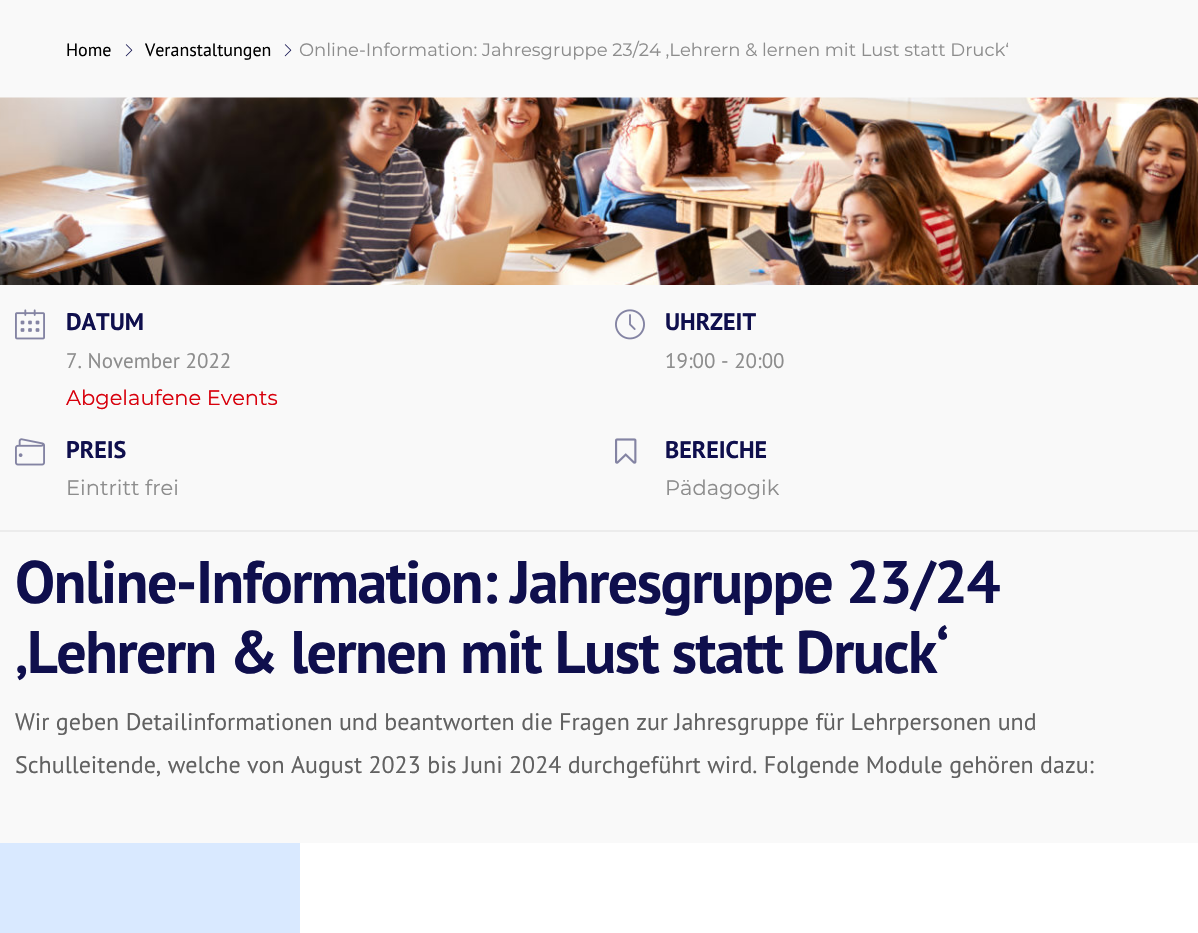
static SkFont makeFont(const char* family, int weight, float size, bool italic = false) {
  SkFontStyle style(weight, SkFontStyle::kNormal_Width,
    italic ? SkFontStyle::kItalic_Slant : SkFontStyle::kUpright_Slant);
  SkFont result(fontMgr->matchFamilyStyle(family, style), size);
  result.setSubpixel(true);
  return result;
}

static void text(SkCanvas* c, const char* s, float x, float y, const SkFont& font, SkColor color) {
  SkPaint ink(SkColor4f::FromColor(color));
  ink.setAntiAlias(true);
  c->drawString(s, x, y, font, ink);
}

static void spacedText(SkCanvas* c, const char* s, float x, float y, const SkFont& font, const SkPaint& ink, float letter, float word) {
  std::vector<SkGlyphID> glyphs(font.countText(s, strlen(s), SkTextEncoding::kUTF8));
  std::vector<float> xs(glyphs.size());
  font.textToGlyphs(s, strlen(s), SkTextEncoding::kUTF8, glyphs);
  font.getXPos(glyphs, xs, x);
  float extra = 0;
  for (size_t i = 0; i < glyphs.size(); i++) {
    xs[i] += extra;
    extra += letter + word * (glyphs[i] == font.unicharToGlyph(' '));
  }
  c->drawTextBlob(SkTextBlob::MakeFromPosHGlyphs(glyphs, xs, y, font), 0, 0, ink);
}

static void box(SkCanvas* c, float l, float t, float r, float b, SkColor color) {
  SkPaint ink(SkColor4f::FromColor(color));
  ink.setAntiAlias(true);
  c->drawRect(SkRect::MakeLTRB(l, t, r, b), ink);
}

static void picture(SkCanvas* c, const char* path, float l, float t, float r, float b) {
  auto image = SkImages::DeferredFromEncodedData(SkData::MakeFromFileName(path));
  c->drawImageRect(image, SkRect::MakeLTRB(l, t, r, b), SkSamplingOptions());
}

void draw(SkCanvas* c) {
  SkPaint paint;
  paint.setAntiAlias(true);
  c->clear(0xfff9f9f9);
  SkFont face1 = makeFont("PT Sans", 400, 18);
  text(c, "Home", 66, 56, face1, 0xff000000);
  picture(c, "img_01.png", 125, 44, 133, 57);
  text(c, "Veranstaltungen", 145, 56, face1, 0xff000000);
  picture(c, "img_01.png", 284, 44, 292, 57);
  SkFont face2 = makeFont("Montserrat", 400, 18);
  text(c, "Online-Information: Jahresgruppe 23/24 ‚Lehrern & lernen mit Lust statt Druck‘", 299, 56, face2, 0xff8d8d8d);
  picture(c, "img_02.png", 0, 97, 1198, 285);
  picture(c, "img_03.png", 15, 309, 45, 340);
  SkFont face3 = makeFont("PT Sans", 700, 24);
  text(c, "DATUM", 66, 330, face3, 0xff0f0f4d);
  SkFont face4 = makeFont("PT Sans", 400, 21);
  text(c, "7. November 2022", 66, 368, face4, 0xff8d8d8d);
  SkFont face5 = makeFont("Montserrat", 400, 21);
  text(c, "Abgelaufene Events", 66, 405, face5, 0xffd8000c);
  picture(c, "img_04.png", 615, 309, 645, 340);
  text(c, "UHRZEIT", 665, 330, face3, 0xff0f0f4d);
  text(c, "19:00 - 20:00", 665, 368, face4, 0xff8d8d8d);
  picture(c, "img_05.png", 15, 438, 45, 466);
  text(c, "PREIS", 66, 458, face3, 0xff0f0f4d);
  text(c, "Eintritt frei", 66, 495, face5, 0xff8d8d8d);
  picture(c, "img_06.png", 615, 438, 637, 464);
  text(c, "BEREICHE", 665, 458, face3, 0xff0f0f4d);
  text(c, "Pädagogik", 665, 495, face5, 0xff8d8d8d);
  box(c, 0, 530, 1198, 532, 0xffececec);
  SkFont face6 = makeFont("PT Sans", 700, 60);
  paint.setColor(0xff0f0f4d);
  spacedText(c, "Online-Information: Jahresgruppe 23/24", 15, 603, face6, paint, -1.5f, 0);
  spacedText(c, "‚Lehrern & lernen mit Lust statt Druck‘", 15, 673, face6, paint, -1.5f, 0);
  SkFont face7 = makeFont("PT Sans", 400, 24);
  text(c, "Wir geben Detailinformationen und beantworten die Fragen zur Jahresgruppe für Lehrpersonen und", 15, 730, face7, 0xff616161);
  text(c, "Schulleitende, welche von August 2023 bis Juni 2024 durchgeführt wird. Folgende Module gehören dazu:", 15, 773, face7, 0xff616161);
  box(c, 300, 843, 1198, 933, 0xffffffff);
  box(c, 0, 843, 300, 933, 0xffd9e9ff);
}
